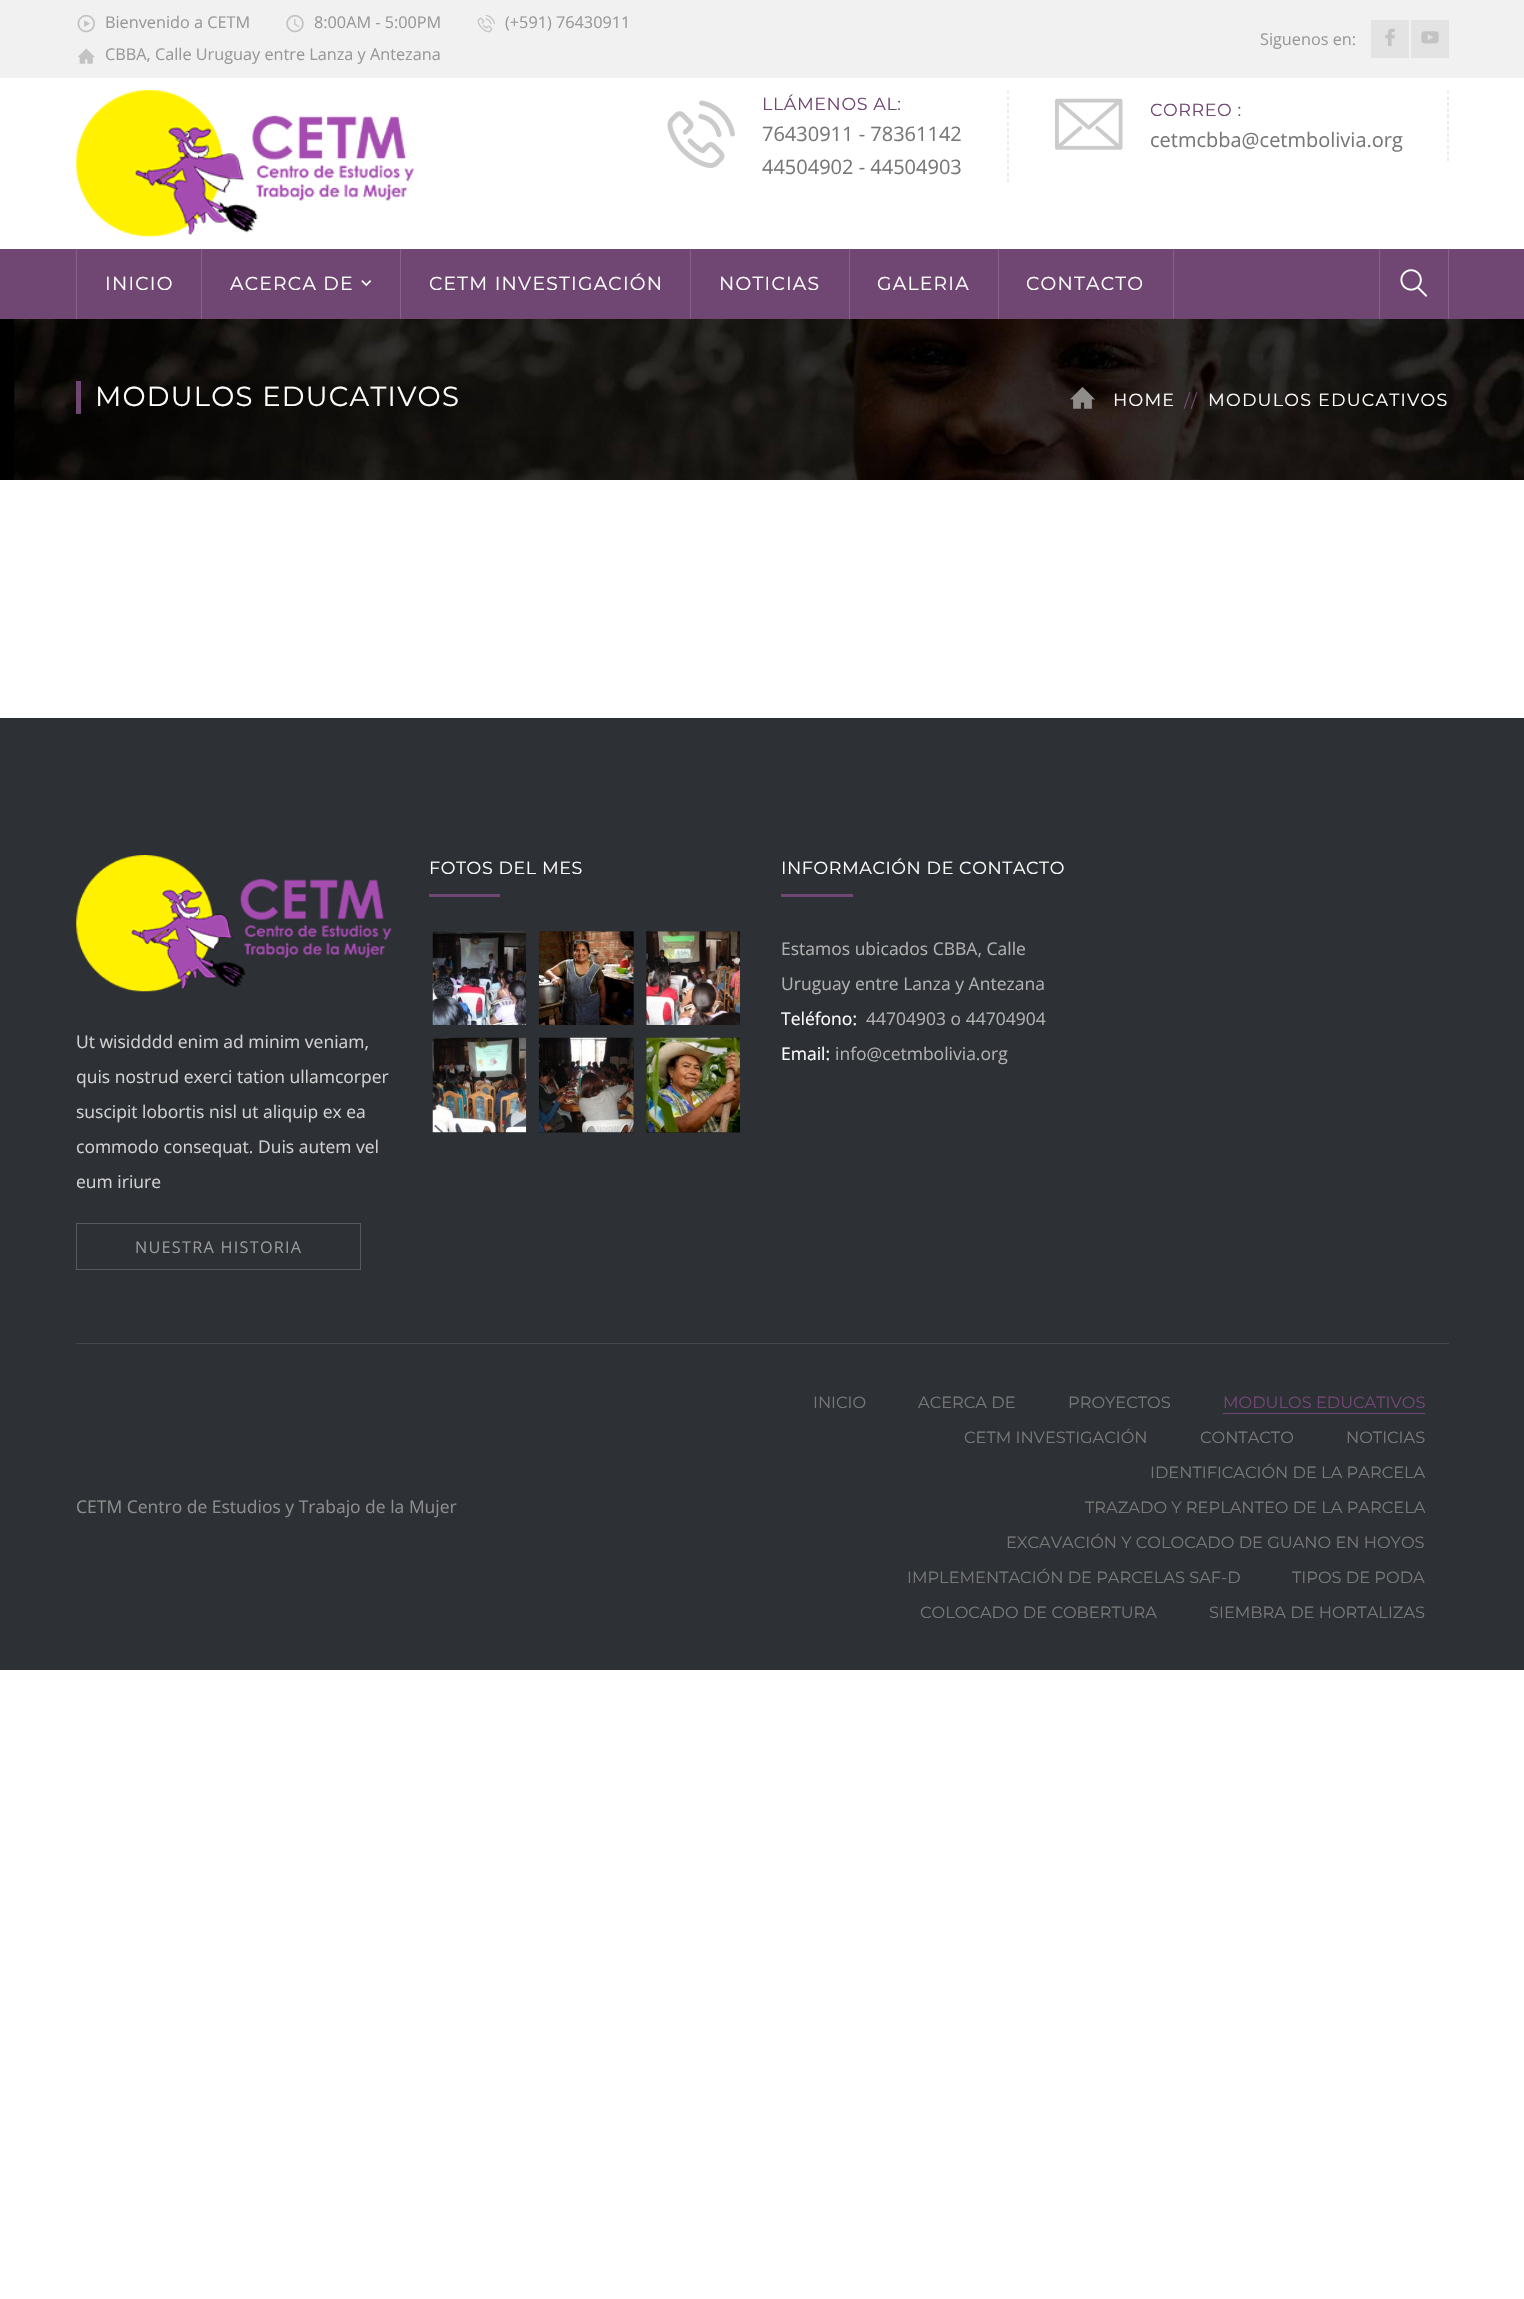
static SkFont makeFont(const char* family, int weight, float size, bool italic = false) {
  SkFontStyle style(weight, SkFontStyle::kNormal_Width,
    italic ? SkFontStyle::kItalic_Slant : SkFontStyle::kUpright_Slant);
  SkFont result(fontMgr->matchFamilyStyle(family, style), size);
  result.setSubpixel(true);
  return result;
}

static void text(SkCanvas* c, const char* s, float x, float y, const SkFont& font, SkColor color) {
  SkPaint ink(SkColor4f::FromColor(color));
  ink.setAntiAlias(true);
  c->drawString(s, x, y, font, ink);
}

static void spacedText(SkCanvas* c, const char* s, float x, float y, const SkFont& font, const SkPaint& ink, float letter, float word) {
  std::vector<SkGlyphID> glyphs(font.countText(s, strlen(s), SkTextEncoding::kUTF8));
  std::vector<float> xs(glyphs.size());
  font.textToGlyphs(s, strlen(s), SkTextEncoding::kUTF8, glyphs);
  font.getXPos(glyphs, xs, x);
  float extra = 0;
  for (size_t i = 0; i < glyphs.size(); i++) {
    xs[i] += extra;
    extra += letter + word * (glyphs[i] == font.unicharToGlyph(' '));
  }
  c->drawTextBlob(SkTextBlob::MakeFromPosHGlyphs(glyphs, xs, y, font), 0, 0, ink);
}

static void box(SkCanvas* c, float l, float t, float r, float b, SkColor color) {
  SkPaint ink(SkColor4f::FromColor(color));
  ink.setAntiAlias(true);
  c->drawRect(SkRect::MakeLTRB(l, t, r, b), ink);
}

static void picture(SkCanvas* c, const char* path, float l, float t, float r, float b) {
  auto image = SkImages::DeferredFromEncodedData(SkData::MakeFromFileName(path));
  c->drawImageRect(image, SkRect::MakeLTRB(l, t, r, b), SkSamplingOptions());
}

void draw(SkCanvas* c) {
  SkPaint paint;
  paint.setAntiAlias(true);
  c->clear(0xffffffff);
  box(c, 0, 0, 1524, 78, 0xfff1f1f1);
  picture(c, "img_01.png", 77, 14, 95, 33);
  SkFont face1 = makeFont("Open Sans", 400, 16.25f);
  text(c, "Bienvenido a CETM", 105, 28, face1, 0xff999999);
  picture(c, "img_02.png", 286, 14, 304, 33);
  text(c, "8:00AM - 5:00PM", 314, 28, face1, 0xff999999);
  picture(c, "img_03.png", 477, 15, 495, 33);
  text(c, "(+591) 76430911", 505, 28, face1, 0xff999999);
  picture(c, "img_04.png", 78, 48, 95, 64);
  text(c, "CBBA, Calle Uruguay entre Lanza y Antezana", 105, 60, face1, 0xff999999);
  text(c, "Siguenos en:", 1260, 45, face1, 0xff999999);
  box(c, 1371, 20, 1409, 58, 0xffe3e3e3);
  picture(c, "img_05.png", 1385, 28, 1395, 46);
  box(c, 1411, 20, 1449, 58, 0xffe3e3e3);
  picture(c, "img_06.png", 1421, 31, 1439, 44);
  picture(c, "img_07.png", 76, 90, 414, 237);
  paint.setStyle(SkPaint::kStroke_Style);
  paint.setStrokeWidth(1.2f);
  paint.setColor(0xffe0e0e0);
  paint.setPathEffect(SkDashPathEffect::Make({{3.75f, 2.59f}}, 0));
  c->drawPath(SkPathBuilder().moveTo(1008, 90).lineTo(1008, 182.5f).detach(), paint);
  paint.setPathEffect(nullptr);
  picture(c, "img_08.png", 667, 100, 735, 168);
  SkFont face2 = makeFont("Montserrat", 400, 17.5f);
  paint.setStyle(SkPaint::kFill_Style);
  paint.setColor(0xff704773);
  spacedText(c, "LLÁMENOS AL:", 762, 110, face2, paint, 0.6f, 0);
  SkFont face3 = makeFont("Open Sans", 400, 20);
  text(c, "76430911 - 78361142", 762, 141, face3, 0xff777777);
  text(c, "44504902 - 44504903", 762, 174, face3, 0xff777777);
  paint.setStyle(SkPaint::kStroke_Style);
  paint.setColor(0xffe0e0e0);
  paint.setPathEffect(SkDashPathEffect::Make({{3.75f, 2.39f}}, 0));
  c->drawPath(SkPathBuilder().moveTo(1448, 90).lineTo(1448, 161).detach(), paint);
  paint.setPathEffect(nullptr);
  picture(c, "img_09.png", 1055, 98, 1123, 150);
  paint.setStyle(SkPaint::kFill_Style);
  paint.setColor(0xff704773);
  spacedText(c, "CORREO :", 1150, 116, face2, paint, 0.6f, 0);
  text(c, "cetmcbba@cetmbolivia.org", 1150, 147, face3, 0xff777777);
  box(c, 0, 249, 1524, 319, 0xff704773);
  box(c, 201, 249, 202, 319, 0xff856388);
  box(c, 76, 249, 77, 319, 0xff856388);
  SkFont face4 = makeFont("Montserrat", 400, 18.75f);
  paint.setColor(0xffffffff);
  spacedText(c, "INICIO", 105, 290, face4, paint, 1.25f, 0);
  box(c, 400, 249, 401, 319, 0xff856388);
  spacedText(c, "ACERCA DE", 230, 290, face4, paint, 1.25f, 0);
  picture(c, "img_10.png", 361, 280, 372, 287);
  box(c, 690, 249, 691, 319, 0xff856388);
  spacedText(c, "CETM INVESTIGACIÓN", 429, 290, face4, paint, 1.25f, 0);
  box(c, 849, 249, 850, 319, 0xff856388);
  spacedText(c, "NOTICIAS", 719, 290, face4, paint, 1.25f, 0);
  box(c, 998, 249, 999, 319, 0xff856388);
  spacedText(c, "GALERIA", 877, 290, face4, paint, 1.25f, 0);
  box(c, 1173, 249, 1174, 319, 0xff856388);
  spacedText(c, "CONTACTO", 1026, 290, face4, paint, 1.25f, 0);
  box(c, 1448, 249, 1449, 319, 0xff856388);
  box(c, 1379, 249, 1380, 319, 0xff856388);
  picture(c, "img_11.png", 1400, 269, 1428, 297);
  picture(c, "img_12.png", 0, 319, 1524, 480);
  box(c, 76, 381, 81, 414, 0xff704773);
  SkFont face5 = makeFont("Montserrat", 400, 27.5f);
  spacedText(c, "MODULOS EDUCATIVOS", 95, 406, face5, paint, 1.25f, 0);
  picture(c, "img_13.png", 1070, 387, 1095, 409);
  spacedText(c, "HOME", 1113, 406, face2, paint, 1.25f, 0);
  paint.setColor(0xff704773);
  spacedText(c, "//", 1184, 407, face2, paint, 1.25f, 0);
  paint.setColor(0xffffffff);
  spacedText(c, "MODULOS EDUCATIVOS", 1208, 406, face2, paint, 1.25f, 0);
  box(c, 0, 718, 1524, 1670, 0xff2d3034);
  spacedText(c, "FOTOS DEL MES", 429, 874, face2, paint, 0.6f, 0);
  box(c, 429, 894, 500, 897, 0xff704773);
  box(c, 433, 931, 526, 932, 0xff222222);
  picture(c, "img_14.png", 432, 931, 527, 1025);
  box(c, 539, 931, 634, 1025, 0xff222222);
  picture(c, "img_15.png", 538, 931, 634, 1025);
  box(c, 646, 931, 740, 1025, 0xff222222);
  picture(c, "img_16.png", 646, 931, 740, 1025);
  box(c, 433, 1132, 526, 1133, 0xff222222);
  picture(c, "img_17.png", 432, 1037, 527, 1133);
  box(c, 539, 1038, 634, 1133, 0xff222222);
  picture(c, "img_18.png", 538, 1037, 634, 1133);
  box(c, 646, 1038, 740, 1133, 0xff222222);
  picture(c, "img_19.png", 646, 1037, 740, 1133);
  spacedText(c, "INFORMACIÓN DE CONTACTO", 781, 874, face2, paint, 0.6f, 0);
  box(c, 781, 894, 853, 897, 0xff704773);
  SkFont face6 = makeFont("Open Sans", 400, 17.5f);
  text(c, "Estamos ubicados CBBA, Calle", 781, 955, face6, 0xffb1b1b1);
  text(c, "Uruguay entre Lanza y Antezana", 781, 990, face6, 0xffb1b1b1);
  text(c, "Teléfono:", 781, 1025, face6, 0xffffffff);
  text(c, "44704903 o 44704904", 866, 1025, face6, 0xffb1b1b1);
  text(c, "Email:", 781, 1060, face6, 0xffffffff);
  text(c, "info@cetmbolivia.org", 835, 1060, face6, 0xffb1b1b1);
  picture(c, "img_20.png", 76, 855, 392, 992);
  text(c, "Ut wisidddd enim ad minim veniam,", 76, 1048, face6, 0xffd0d0d1);
  text(c, "quis nostrud exerci tation ullamcorper", 76, 1083, face6, 0xffd0d0d1);
  text(c, "suscipit lobortis nisl ut aliquip ex ea", 76, 1118, face6, 0xffd0d0d1);
  text(c, "commodo consequat. Duis autem vel", 76, 1153, face6, 0xffd0d0d1);
  text(c, "eum iriure", 76, 1188, face6, 0xffd0d0d1);
  paint.setStyle(SkPaint::kStroke_Style);
  paint.setStrokeWidth(1);
  paint.setColor(0xff57595d);
  c->drawRect(SkRect::MakeLTRB(76.5f, 1223.5f, 360.5f, 1269.5f), paint);
  paint.setStyle(SkPaint::kFill_Style);
  paint.setColor(0xff999999);
  spacedText(c, "NUESTRA HISTORIA", 135, 1253, face1, paint, 1.25f, 0);
  box(c, 76, 1343, 1449, 1344, 0xff45484b);
  text(c, "CETM Centro de Estudios y Trabajo de la Mujer", 76, 1513, face6, 0xff8d8d8d);
  SkFont face7 = makeFont("Montserrat", 400, 16.25f);
  text(c, "INICIO", 813, 1408, face7, 0xff777777);
  text(c, "ACERCA DE", 918, 1408, face7, 0xff777777);
  text(c, "PROYECTOS", 1068, 1408, face7, 0xff777777);
  text(c, "MODULOS EDUCATIVOS", 1223, 1408, face7, 0xff704773);
  box(c, 1223, 1413, 1425, 1414, 0xff704773);
  text(c, "CETM INVESTIGACIÓN", 964, 1443, face7, 0xff777777);
  text(c, "CONTACTO", 1200, 1443, face7, 0xff777777);
  text(c, "NOTICIAS", 1346, 1443, face7, 0xff777777);
  text(c, "IDENTIFICACIÓN DE LA PARCELA", 1150, 1478, face7, 0xff777777);
  text(c, "TRAZADO Y REPLANTEO DE LA PARCELA", 1085, 1513, face7, 0xff777777);
  text(c, "EXCAVACIÓN Y COLOCADO DE GUANO EN HOYOS", 1006, 1548, face7, 0xff777777);
  text(c, "IMPLEMENTACIÓN DE PARCELAS SAF-D", 907, 1583, face7, 0xff777777);
  text(c, "TIPOS DE PODA", 1292, 1583, face7, 0xff777777);
  text(c, "COLOCADO DE COBERTURA", 920, 1618, face7, 0xff777777);
  text(c, "SIEMBRA DE HORTALIZAS", 1209, 1618, face7, 0xff777777);
}
